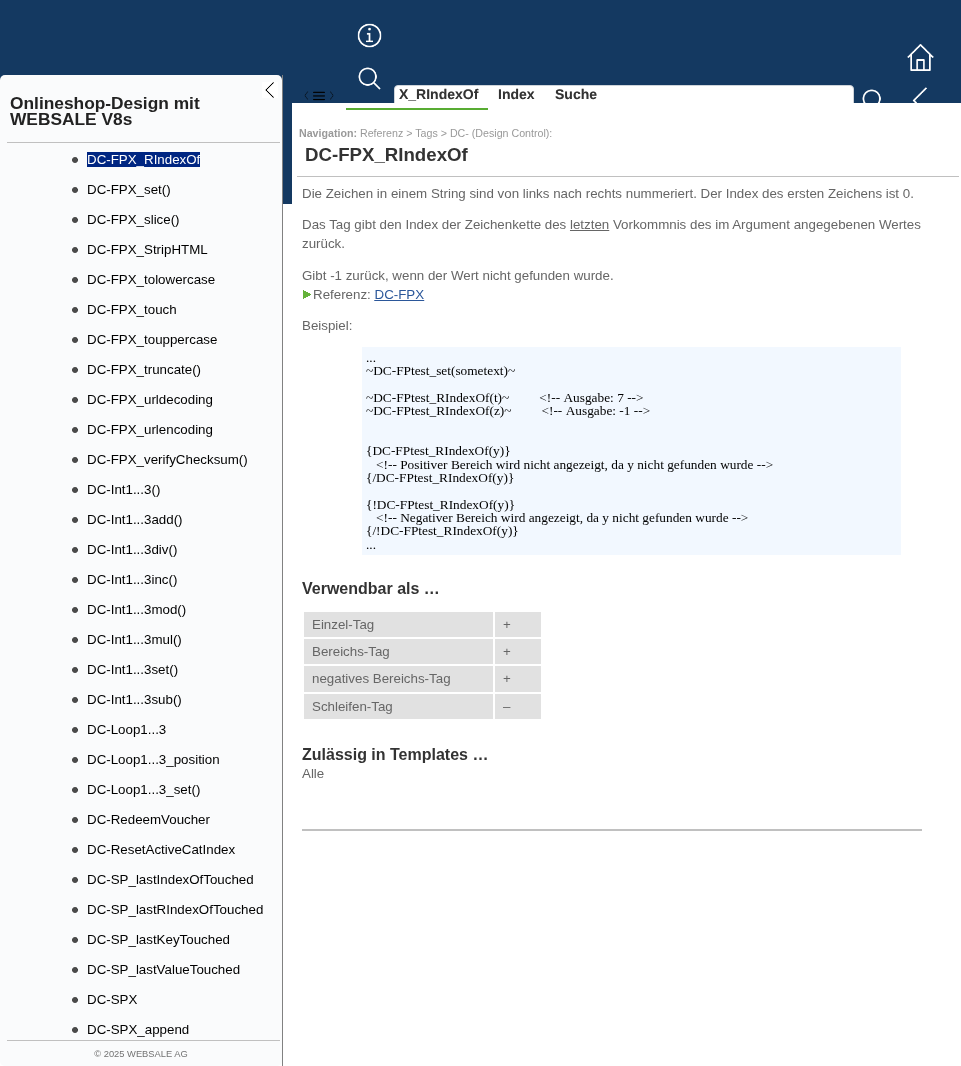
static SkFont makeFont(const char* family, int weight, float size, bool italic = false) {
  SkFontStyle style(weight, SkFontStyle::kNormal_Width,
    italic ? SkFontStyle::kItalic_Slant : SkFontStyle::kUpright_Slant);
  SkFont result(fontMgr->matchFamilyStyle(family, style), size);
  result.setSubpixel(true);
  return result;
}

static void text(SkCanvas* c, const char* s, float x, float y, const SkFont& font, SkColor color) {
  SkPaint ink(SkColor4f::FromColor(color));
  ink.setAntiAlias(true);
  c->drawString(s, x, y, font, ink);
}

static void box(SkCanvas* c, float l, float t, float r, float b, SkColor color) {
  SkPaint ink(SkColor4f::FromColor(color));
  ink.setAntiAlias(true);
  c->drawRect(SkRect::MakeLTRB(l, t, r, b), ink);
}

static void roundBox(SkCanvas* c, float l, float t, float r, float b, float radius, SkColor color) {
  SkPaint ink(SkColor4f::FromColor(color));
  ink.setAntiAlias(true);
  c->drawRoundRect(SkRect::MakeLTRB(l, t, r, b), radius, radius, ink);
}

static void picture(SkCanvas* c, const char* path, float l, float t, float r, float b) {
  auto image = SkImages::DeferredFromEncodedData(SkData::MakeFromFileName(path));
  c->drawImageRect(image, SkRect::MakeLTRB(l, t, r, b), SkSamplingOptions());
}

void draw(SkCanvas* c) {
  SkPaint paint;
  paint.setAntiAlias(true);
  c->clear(0xffffffff);
  box(c, 0, 0, 961, 204, 0xff143961);
  picture(c, "img_01.png", 357, 23, 382, 48);
  picture(c, "img_02.png", 358, 67, 381, 90);
  paint.setColor(0xffffffff);
  c->drawRoundRect(SkRect::MakeLTRB(394.5f, 85.5f, 853.5f, 118.5f), 3.5f, 3.5f, paint);
  paint.setStyle(SkPaint::kStroke_Style);
  paint.setStrokeWidth(1);
  paint.setColor(0xffced4da);
  c->drawRoundRect(SkRect::MakeLTRB(394.5f, 85.5f, 853.5f, 118.5f), 3.5f, 3.5f, paint);
  picture(c, "img_03.png", 862, 89, 881, 103);
  picture(c, "img_04.png", 907, 44, 934, 71);
  picture(c, "img_05.png", 912, 87, 927, 103);
  box(c, 282, 75, 283, 1066, 0xff818181);
  roundBox(c, 0, 75, 282, 1066, 5, 0xfffafbfc);
  picture(c, "img_06.png", 7, 97, 280, 1057);
  picture(c, "img_07.png", 262, 82, 278, 98);
  picture(c, "img_08.png", 304, 91, 309, 100);
  picture(c, "img_09.png", 313, 91, 325, 101);
  picture(c, "img_10.png", 330, 91, 334, 100);
  box(c, 292, 103, 961, 204, 0xffffffff);
  box(c, 346, 108, 488, 110, 0xff58ac32);
  SkFont face1 = makeFont("Liberation Sans", 700, 14);
  text(c, "X_RIndexOf", 399, 99, face1, 0xff333333);
  text(c, "Index", 498, 99, face1, 0xff333333);
  text(c, "Suche", 555, 99, face1, 0xff333333);
  picture(c, "img_11.png", 297, 129, 959, 831);
}
